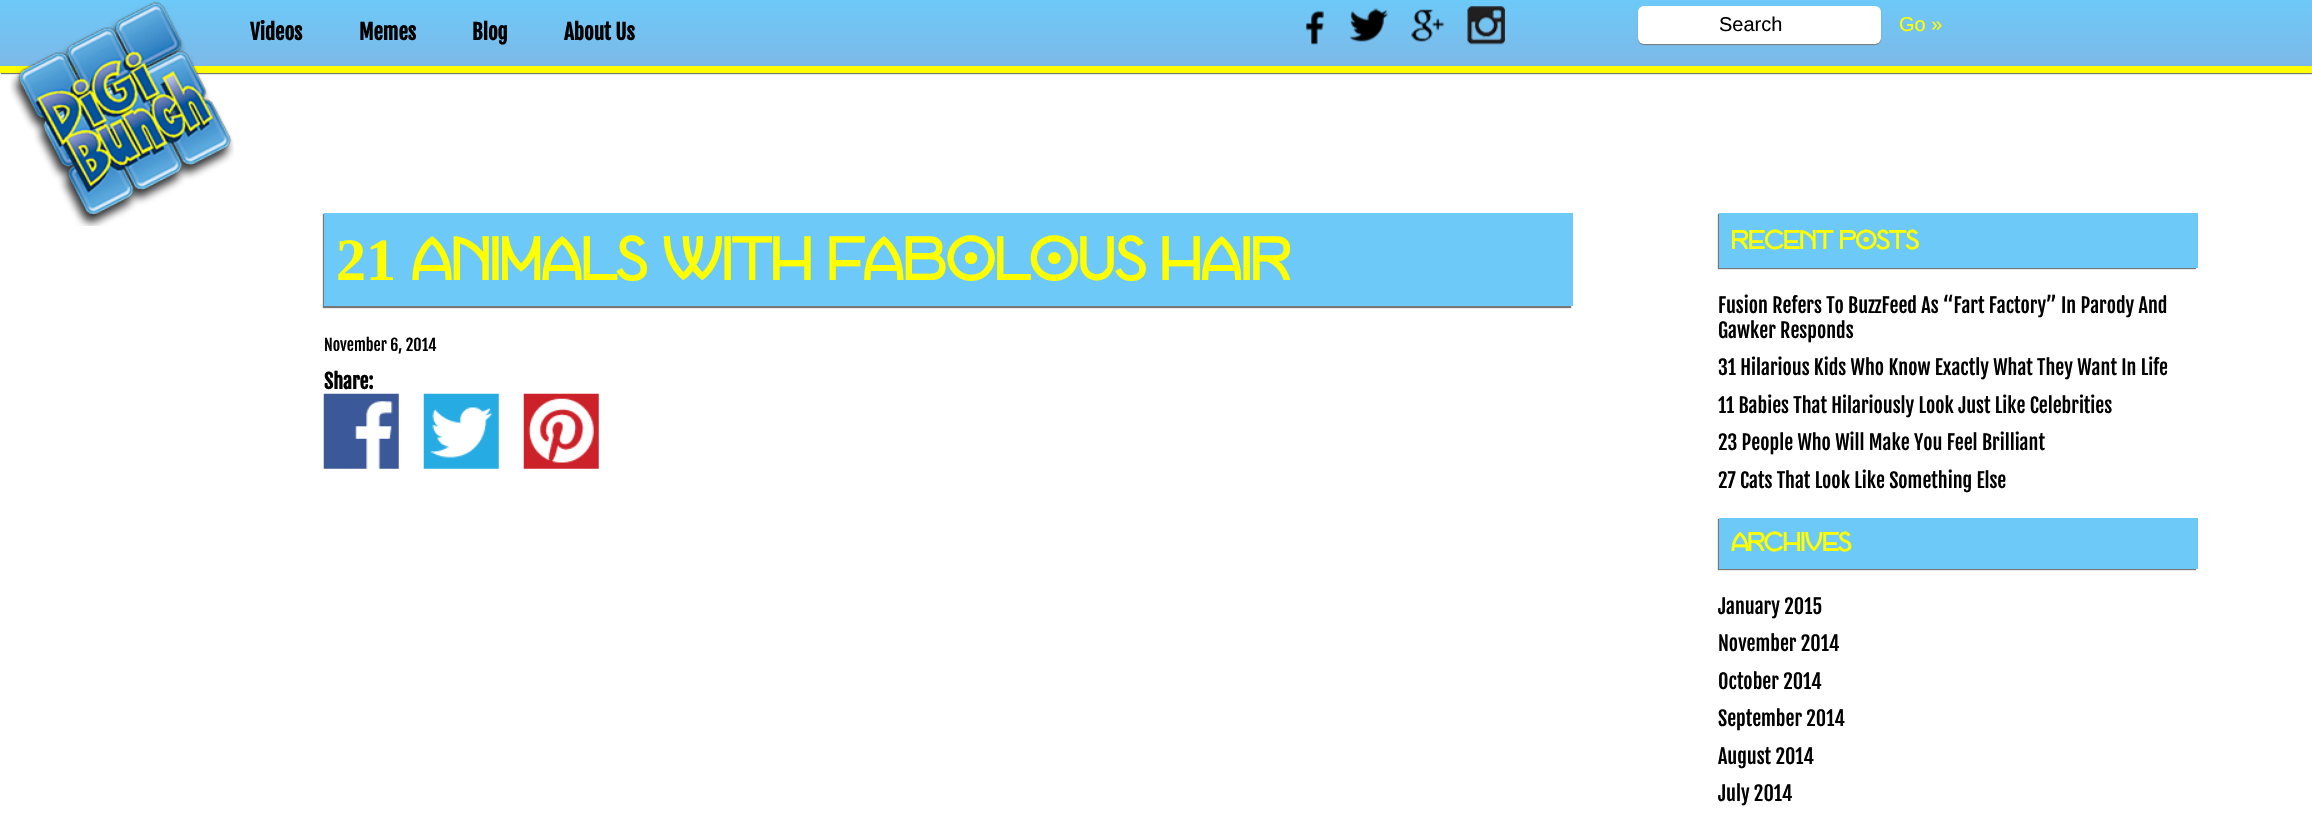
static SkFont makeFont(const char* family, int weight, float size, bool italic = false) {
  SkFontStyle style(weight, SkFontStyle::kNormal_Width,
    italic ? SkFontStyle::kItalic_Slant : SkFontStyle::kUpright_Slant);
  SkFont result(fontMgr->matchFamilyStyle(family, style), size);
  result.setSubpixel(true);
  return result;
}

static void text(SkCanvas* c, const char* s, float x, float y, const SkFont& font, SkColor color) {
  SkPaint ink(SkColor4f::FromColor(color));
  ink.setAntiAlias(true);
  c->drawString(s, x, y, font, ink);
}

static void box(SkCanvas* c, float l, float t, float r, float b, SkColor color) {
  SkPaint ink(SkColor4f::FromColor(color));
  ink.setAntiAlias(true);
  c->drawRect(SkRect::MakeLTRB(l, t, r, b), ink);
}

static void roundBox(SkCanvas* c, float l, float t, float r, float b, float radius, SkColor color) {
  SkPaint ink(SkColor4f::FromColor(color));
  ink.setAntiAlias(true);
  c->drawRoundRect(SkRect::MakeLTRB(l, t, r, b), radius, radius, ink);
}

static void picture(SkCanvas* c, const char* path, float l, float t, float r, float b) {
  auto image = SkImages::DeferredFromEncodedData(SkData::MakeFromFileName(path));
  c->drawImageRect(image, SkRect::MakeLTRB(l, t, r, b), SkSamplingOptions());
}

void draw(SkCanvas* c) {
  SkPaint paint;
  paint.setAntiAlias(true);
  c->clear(0xffffffff);
  paint.setColor(0xff777777);
  paint.setMaskFilter(SkMaskFilter::MakeBlur(kNormal_SkBlurStyle, 0.5f));
  c->drawRect(SkRect::MakeLTRB(1, 1, 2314, 74), paint);
  paint.setMaskFilter(nullptr);
  {
    const SkColor colors[] = {0xff6dc9f8, 0xff7db9e8};
    const float stops[] = {0, 1};
    const SkPoint ends[] = {{1156, 0}, {1156, 66}};
    paint.setShader(SkGradientShader::MakeLinear(ends, colors, stops, 2, SkTileMode::kClamp));
    paint.setAlpha(255);
  }
  c->drawRect(SkRect::MakeLTRB(0, 0, 2312, 66), paint);
  box(c, 0, 66, 2312, 73, 0xffffff00);
  picture(c, "img_01.png", 10, 1, 234, 226);
  SkFont face1 = makeFont("Fjalla One", 700, 21);
  text(c, "Videos", 250, 40, face1, 0xff000000);
  text(c, "Memes", 359, 40, face1, 0xff000000);
  text(c, "Blog", 472, 40, face1, 0xff000000);
  text(c, "About Us", 564, 40, face1, 0xff000000);
  picture(c, "img_02.png", 1306, 10, 1324, 45);
  picture(c, "img_03.png", 1350, 8, 1388, 42);
  picture(c, "img_04.png", 1411, 9, 1444, 42);
  picture(c, "img_05.png", 1467, 6, 1505, 45);
  paint.setShader(nullptr);
  paint.setColor(0xff777777);
  paint.setMaskFilter(SkMaskFilter::MakeBlur(kNormal_SkBlurStyle, 0.5f));
  c->drawRoundRect(SkRect::MakeLTRB(1638, 8, 1881, 45), 6, 6, paint);
  paint.setMaskFilter(nullptr);
  roundBox(c, 1638, 6, 1881, 44, 6, 0xffffffff);
  SkFont face2 = makeFont("Liberation Sans", 400, 20);
  text(c, "Search", 1719, 31, face2, 0xff000000);
  text(c, "Go »", 1899, 31, face2, 0xffffff00);
  paint.setMaskFilter(SkMaskFilter::MakeBlur(kNormal_SkBlurStyle, 0.5f));
  c->drawRect(SkRect::MakeLTRB(323, 214, 1571, 308), paint);
  paint.setMaskFilter(nullptr);
  box(c, 324, 213, 1573, 306, 0xff6dc9f8);
  SkFont face3 = makeFont("Liberation Serif", 700, 60);
  text(c, "21", 336, 280, face3, 0xffffff00);
  SkFont face4 = makeFont("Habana", 700, 60);
  text(c, "ANIMALS", 411, 280, face4, 0xffffff00);
  text(c, "WITH", 662, 280, face4, 0xffffff00);
  text(c, "FABOLOUS", 827, 280, face4, 0xffffff00);
  text(c, "HAIR", 1160, 280, face4, 0xffffff00);
  SkFont face5 = makeFont("Fjalla One", 400, 16);
  text(c, "November 6, 2014", 324, 351, face5, 0xff000000);
  SkFont face6 = makeFont("Fjalla One", 700, 20);
  text(c, "Share:", 324, 389, face6, 0xff000000);
  picture(c, "img_06.png", 323, 393, 399, 469);
  picture(c, "img_07.png", 423, 393, 499, 469);
  picture(c, "img_08.png", 523, 393, 599, 469);
  paint.setMaskFilter(SkMaskFilter::MakeBlur(kNormal_SkBlurStyle, 0.5f));
  c->drawRect(SkRect::MakeLTRB(1718, 214, 2196, 269), paint);
  paint.setMaskFilter(nullptr);
  box(c, 1719, 213, 2198, 268, 0xff6dc9f8);
  SkFont face7 = makeFont("Habana", 700, 26);
  text(c, "Recent", 1731, 249, face7, 0xffffff00);
  text(c, "Posts", 1839, 249, face7, 0xffffff00);
  SkFont face8 = makeFont("Fjalla One", 400, 20);
  text(c, "Fusion Refers To BuzzFeed As “Fart Factory” In Parody And", 1718, 313, face8, 0xff000000);
  text(c, "Gawker Responds", 1718, 338, face8, 0xff000000);
  text(c, "31 Hilarious Kids Who Know Exactly What They Want In Life", 1718, 375, face8, 0xff000000);
  text(c, "11 Babies That Hilariously Look Just Like Celebrities", 1718, 413, face8, 0xff000000);
  text(c, "23 People Who Will Make You Feel Brilliant", 1718, 450, face8, 0xff000000);
  text(c, "27 Cats That Look Like Something Else", 1718, 488, face8, 0xff000000);
  paint.setMaskFilter(SkMaskFilter::MakeBlur(kNormal_SkBlurStyle, 0.5f));
  c->drawRect(SkRect::MakeLTRB(1718, 519, 2196, 570), paint);
  paint.setMaskFilter(nullptr);
  box(c, 1719, 518, 2198, 569, 0xff6dc9f8);
  text(c, "Archives", 1731, 551, face7, 0xffffff00);
  text(c, "January 2015", 1718, 614, face8, 0xff000000);
  text(c, "November 2014", 1718, 651, face8, 0xff000000);
  text(c, "October 2014", 1718, 689, face8, 0xff000000);
  text(c, "September 2014", 1718, 726, face8, 0xff000000);
  text(c, "August 2014", 1718, 764, face8, 0xff000000);
  text(c, "July 2014", 1718, 801, face8, 0xff000000);
}
